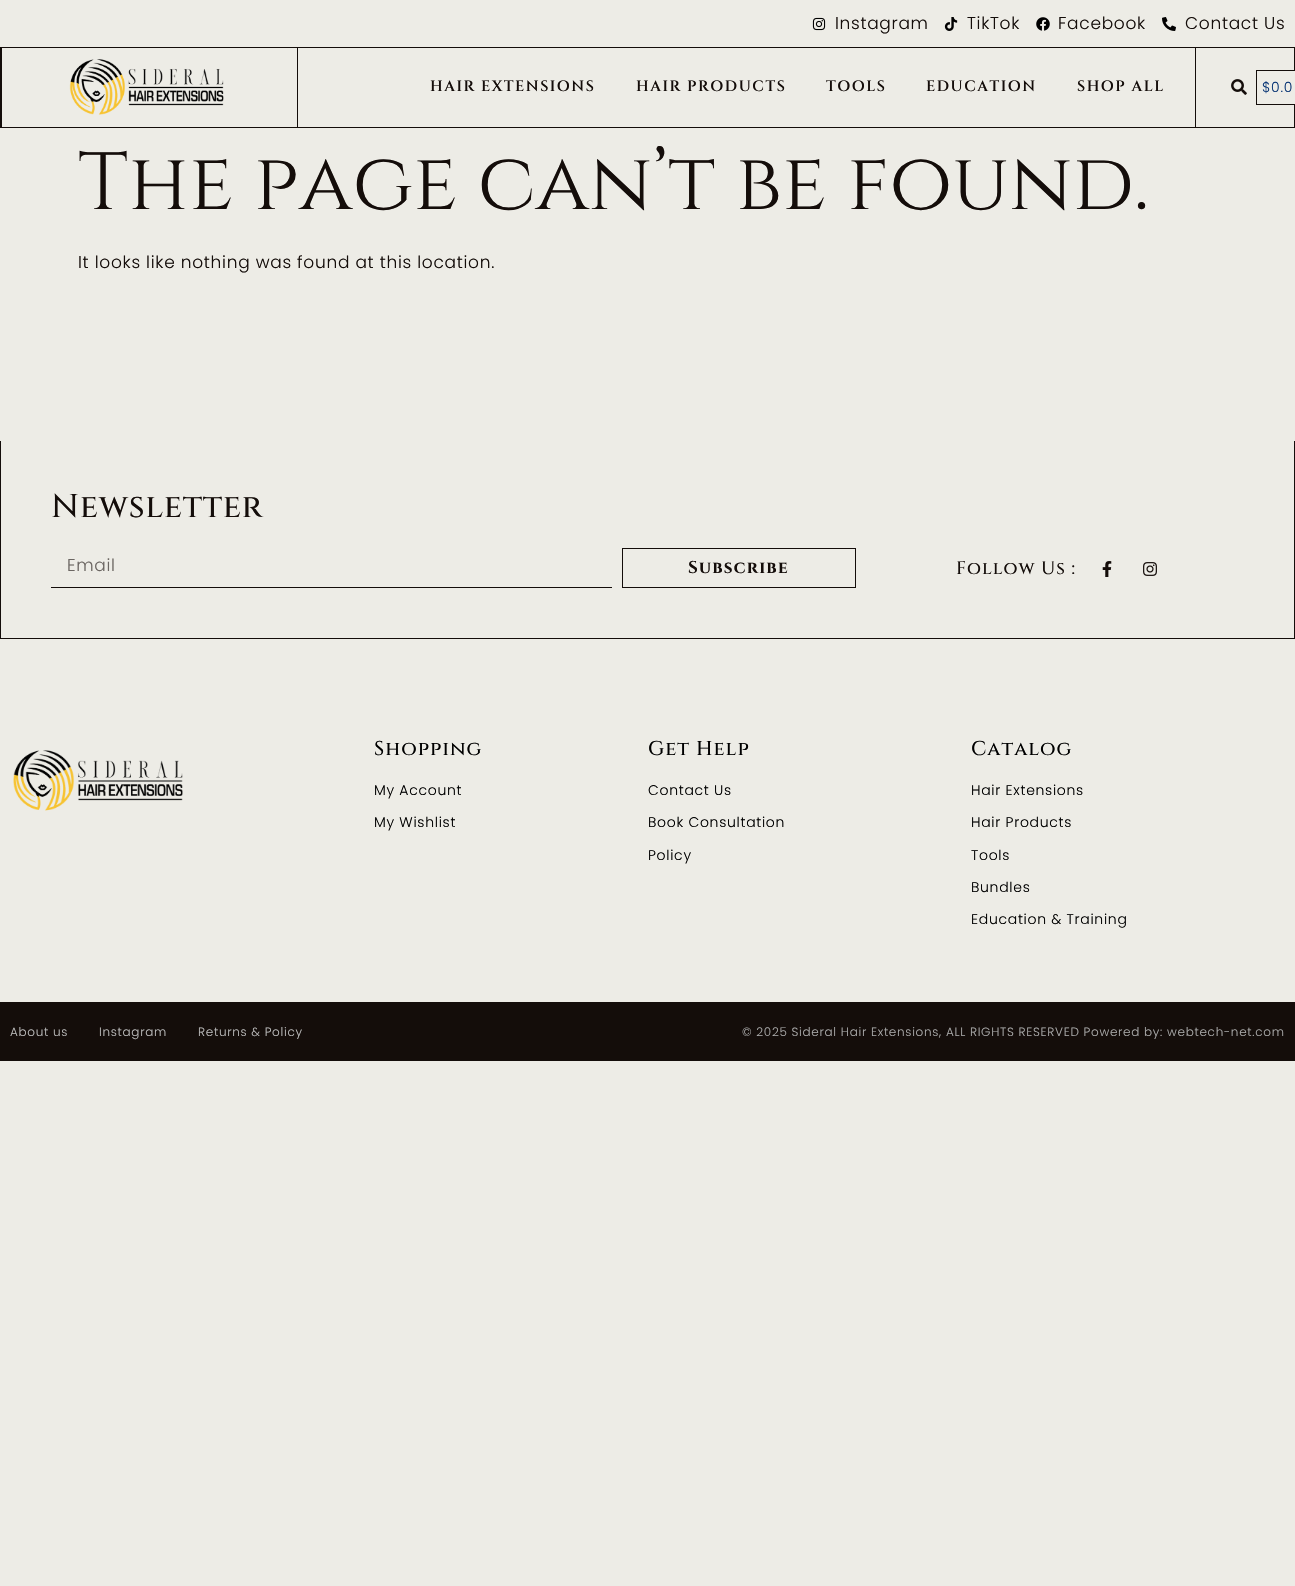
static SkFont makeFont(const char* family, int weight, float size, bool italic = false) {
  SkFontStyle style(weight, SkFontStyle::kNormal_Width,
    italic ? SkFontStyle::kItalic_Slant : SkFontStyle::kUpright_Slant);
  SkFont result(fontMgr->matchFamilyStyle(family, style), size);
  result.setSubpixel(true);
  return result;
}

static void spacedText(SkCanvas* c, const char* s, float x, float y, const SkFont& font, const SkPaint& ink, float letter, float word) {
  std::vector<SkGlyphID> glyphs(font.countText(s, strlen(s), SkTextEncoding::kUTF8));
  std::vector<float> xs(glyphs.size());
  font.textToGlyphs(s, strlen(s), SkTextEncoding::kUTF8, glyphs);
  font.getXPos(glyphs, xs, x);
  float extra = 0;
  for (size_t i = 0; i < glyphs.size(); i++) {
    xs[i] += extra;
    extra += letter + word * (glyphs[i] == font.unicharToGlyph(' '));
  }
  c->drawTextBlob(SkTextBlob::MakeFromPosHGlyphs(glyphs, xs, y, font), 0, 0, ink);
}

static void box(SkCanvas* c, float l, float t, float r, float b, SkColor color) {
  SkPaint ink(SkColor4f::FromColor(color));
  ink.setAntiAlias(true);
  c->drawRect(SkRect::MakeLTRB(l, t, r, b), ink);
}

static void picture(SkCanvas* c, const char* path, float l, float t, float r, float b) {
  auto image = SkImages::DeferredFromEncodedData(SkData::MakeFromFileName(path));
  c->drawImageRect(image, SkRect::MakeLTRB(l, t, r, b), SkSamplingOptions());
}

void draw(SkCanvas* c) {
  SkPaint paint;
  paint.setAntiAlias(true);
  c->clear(0xffedece6);
  picture(c, "img_01.png", 812, 17, 826, 31);
  SkFont face1 = makeFont("Poppins", 300, 17);
  paint.setColor(0xff140d0a);
  spacedText(c, "Instagram", 835, 29, face1, paint, 0.7f, 0);
  picture(c, "img_02.png", 944, 17, 958, 31);
  spacedText(c, "TikTok", 967, 29, face1, paint, 0.7f, 0);
  picture(c, "img_03.png", 1036, 17, 1050, 31);
  spacedText(c, "Facebook", 1058, 29, face1, paint, 0.7f, 0);
  picture(c, "img_04.png", 1162, 17, 1176, 31);
  spacedText(c, "Contact Us", 1185, 29, face1, paint, 0.7f, 0);
  paint.setStyle(SkPaint::kStroke_Style);
  paint.setStrokeWidth(1);
  c->drawRect(SkRect::MakeLTRB(0.5f, 47.5f, 1294.5f, 127.5f), paint);
  box(c, 297, 48, 298, 127, 0xff140d0a);
  box(c, 1, 48, 2, 127, 0xff140d0a);
  picture(c, "img_05.png", 69, 59, 224, 115);
  box(c, 1195, 48, 1196, 127, 0xff140d0a);
  SkFont face2 = makeFont("Cinzel", 600, 15);
  paint.setStyle(SkPaint::kFill_Style);
  spacedText(c, "HAIR EXTENSIONS", 430, 91, face2, paint, 1.5f, 0);
  spacedText(c, "HAIR PRODUCTS", 636, 91, face2, paint, 1.5f, 0);
  spacedText(c, "TOOLS", 826, 91, face2, paint, 1.5f, 0);
  spacedText(c, "EDUCATION", 926, 91, face2, paint, 1.5f, 0);
  spacedText(c, "SHOP ALL", 1077, 91, face2, paint, 1.5f, 0);
  picture(c, "img_06.png", 1231, 79, 1247, 95);
  box(c, 1294, 71, 1295, 104, 0xffedece6);
  paint.setStyle(SkPaint::kStroke_Style);
  c->drawRect(SkRect::MakeLTRB(1256.5f, 70.5f, 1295.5f, 104.5f), paint);
  SkFont face3 = makeFont("Poppins", 300, 14);
  paint.setStyle(SkPaint::kFill_Style);
  paint.setColor(0xff073474);
  spacedText(c, "$0.0", 1262, 92, face3, paint, 0.7f, 0);
  SkFont face4 = makeFont("Cinzel", 400, 81);
  paint.setColor(0xff140d0a);
  spacedText(c, "The page can’t be found.", 78, 209, face4, paint, 0.2f, 0);
  spacedText(c, "It looks like nothing was found at this location.", 78, 268, face1, paint, 0.7f, 0);
  box(c, 1294, 441, 1295, 639, 0xff140d0a);
  box(c, 0, 638, 1295, 639, 0xff140d0a);
  box(c, 0, 441, 1, 639, 0xff140d0a);
  SkFont face5 = makeFont("Cinzel", 500, 33);
  spacedText(c, "Newsletter", 51, 517, face5, paint, 0.7f, 0);
  box(c, 51, 587, 612, 588, 0xff140d0a);
  paint.setColor(0xff6b6662);
  spacedText(c, "Email", 67, 571, face1, paint, 0.7f, 0);
  paint.setStyle(SkPaint::kStroke_Style);
  paint.setColor(0xff140d0a);
  c->drawRect(SkRect::MakeLTRB(622.5f, 548.5f, 855.5f, 587.5f), paint);
  SkFont face6 = makeFont("Cinzel", 700, 17);
  paint.setStyle(SkPaint::kFill_Style);
  spacedText(c, "Subscribe", 688, 573, face6, paint, 1.25f, 0);
  SkFont face7 = makeFont("Cinzel", 500, 18);
  spacedText(c, "Follow Us :", 956, 574, face7, paint, 1, 0);
  picture(c, "img_07.png", 1102, 561, 1112, 577);
  picture(c, "img_08.png", 1143, 562, 1157, 576);
  picture(c, "img_09.png", 13, 750, 183, 811);
  SkFont face8 = makeFont("Cinzel", 500, 20);
  paint.setColor(0xff000000);
  spacedText(c, "Shopping", 374, 755, face8, paint, 1, 0);
  spacedText(c, "My Account", 374, 795, face3, paint, 0.7f, 0);
  spacedText(c, "My Wishlist", 374, 827, face3, paint, 0.7f, 0);
  spacedText(c, "Get Help", 648, 755, face8, paint, 1, 0);
  spacedText(c, "Contact Us", 648, 795, face3, paint, 0.7f, 0);
  spacedText(c, "Book Consultation", 648, 827, face3, paint, 0.7f, 0);
  spacedText(c, "Policy", 648, 860, face3, paint, 0.7f, 0);
  spacedText(c, "Catalog", 971, 755, face8, paint, 1, 0);
  spacedText(c, "Hair Extensions", 971, 795, face3, paint, 0.7f, 0);
  spacedText(c, "Hair Products", 971, 827, face3, paint, 0.7f, 0);
  spacedText(c, "Tools", 971, 860, face3, paint, 0.7f, 0);
  spacedText(c, "Bundles", 971, 892, face3, paint, 0.7f, 0);
  spacedText(c, "Education & Training", 971, 924, face3, paint, 0.7f, 0);
  box(c, 0, 1002, 1295, 1061, 0xff140d0a);
  SkFont face9 = makeFont("Poppins", 300, 12);
  paint.setColor(0xffbdbdbd);
  spacedText(c, "About us", 10, 1036, face9, paint, 0.7f, 0);
  spacedText(c, "Instagram", 99, 1036, face9, paint, 0.7f, 0);
  spacedText(c, "Returns & Policy", 198, 1036, face9, paint, 0.7f, 0);
  paint.setColor(0xffaaaaaa);
  spacedText(c, "© 2025 Sideral Hair Extensions, ALL RIGHTS RESERVED Powered by: webtech-net.com", 742, 1036, face9, paint, 0.7f, 0);
}
